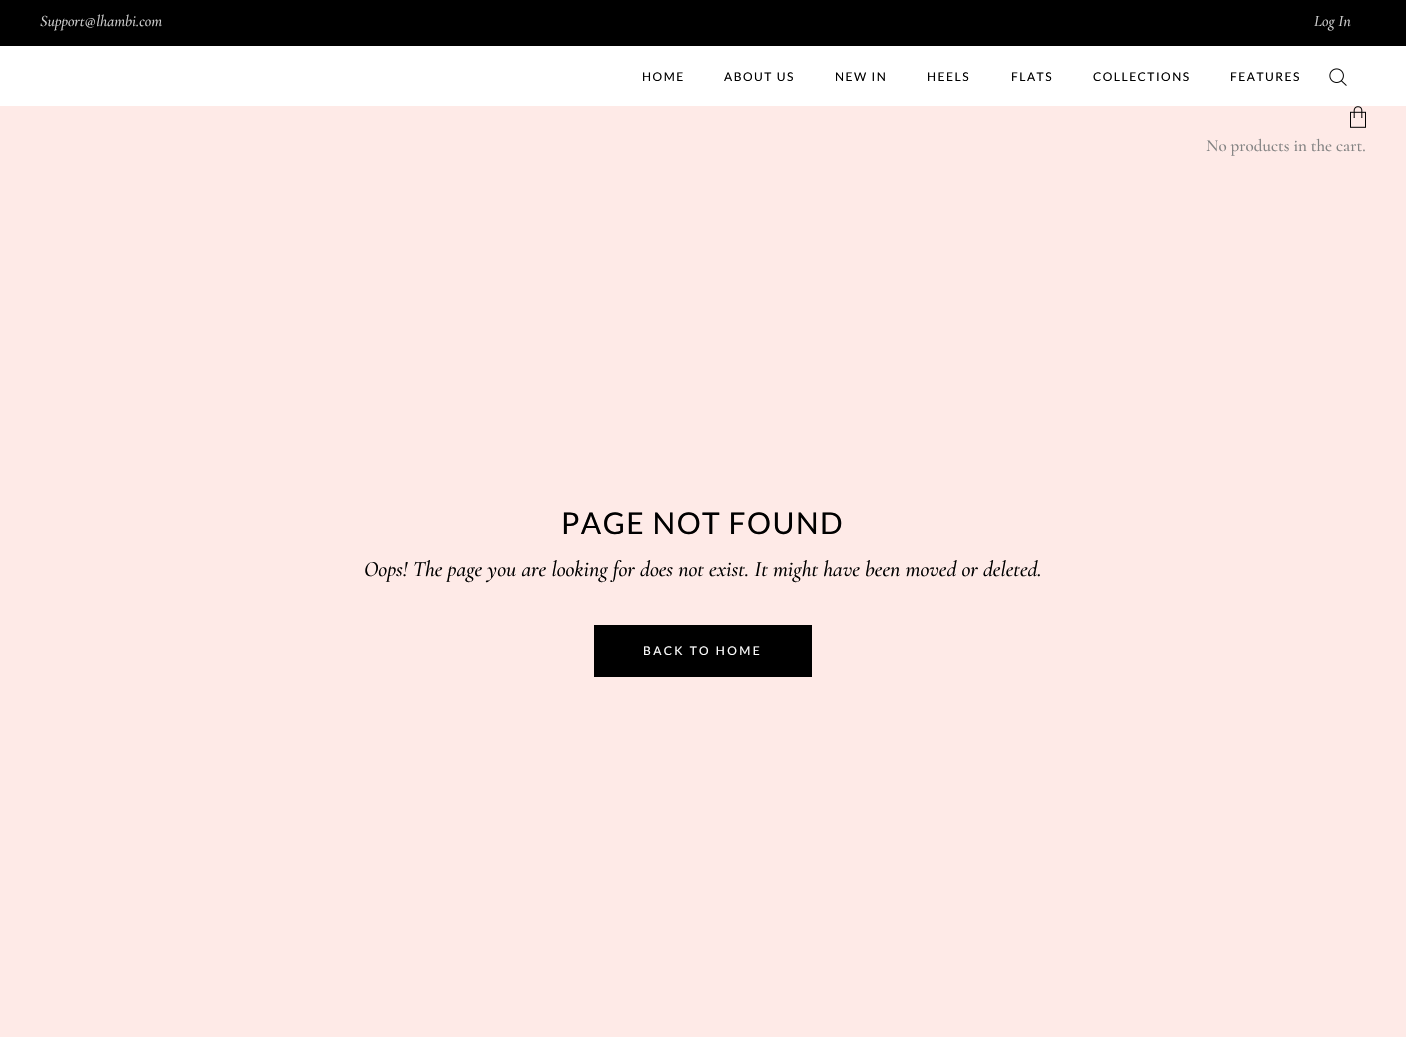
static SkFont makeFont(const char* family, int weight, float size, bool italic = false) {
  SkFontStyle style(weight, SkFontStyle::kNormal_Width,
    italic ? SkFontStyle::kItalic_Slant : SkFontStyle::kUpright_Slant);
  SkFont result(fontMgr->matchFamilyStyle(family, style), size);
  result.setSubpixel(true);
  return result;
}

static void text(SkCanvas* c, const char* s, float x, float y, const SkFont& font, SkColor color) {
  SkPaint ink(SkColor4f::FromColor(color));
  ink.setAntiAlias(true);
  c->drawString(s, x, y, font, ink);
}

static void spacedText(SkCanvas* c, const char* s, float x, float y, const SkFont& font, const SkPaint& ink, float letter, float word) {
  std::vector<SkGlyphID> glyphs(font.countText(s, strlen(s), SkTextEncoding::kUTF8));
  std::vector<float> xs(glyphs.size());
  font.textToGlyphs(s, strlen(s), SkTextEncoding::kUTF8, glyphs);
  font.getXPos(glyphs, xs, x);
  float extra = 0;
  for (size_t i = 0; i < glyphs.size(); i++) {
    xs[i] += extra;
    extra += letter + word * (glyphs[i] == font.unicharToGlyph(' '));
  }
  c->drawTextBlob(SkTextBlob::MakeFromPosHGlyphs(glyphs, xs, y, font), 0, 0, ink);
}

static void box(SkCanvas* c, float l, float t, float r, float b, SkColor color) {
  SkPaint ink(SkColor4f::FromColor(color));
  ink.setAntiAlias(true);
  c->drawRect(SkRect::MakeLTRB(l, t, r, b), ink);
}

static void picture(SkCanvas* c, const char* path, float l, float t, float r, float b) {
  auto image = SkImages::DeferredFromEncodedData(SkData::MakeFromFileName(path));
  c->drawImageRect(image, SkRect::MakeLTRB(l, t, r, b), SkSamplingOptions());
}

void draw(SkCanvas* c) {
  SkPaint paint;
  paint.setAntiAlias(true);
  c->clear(0xffffffff);
  box(c, 0, 0, 1406, 46, 0xff000000);
  SkFont face1 = makeFont("Cormorant", 500, 16, true);
  text(c, "Support@lhambi.com", 40, 26, face1, 0xffcecece);
  text(c, "Log In", 1314, 26, face1, 0xffcecece);
  SkFont face2 = makeFont("Lato", 400, 12);
  paint.setColor(0xff000000);
  spacedText(c, "HOME", 642, 81, face2, paint, 1.5f, 0);
  spacedText(c, "ABOUT US", 724, 81, face2, paint, 1.5f, 0);
  spacedText(c, "NEW IN", 835, 81, face2, paint, 1.5f, 0);
  spacedText(c, "HEELS", 927, 81, face2, paint, 1.5f, 0);
  spacedText(c, "FLATS", 1011, 81, face2, paint, 1.5f, 0);
  spacedText(c, "COLLECTIONS", 1093, 81, face2, paint, 1.5f, 0);
  spacedText(c, "FEATURES", 1230, 81, face2, paint, 1.5f, 0);
  picture(c, "img_01.png", 1329, 68, 1347, 86);
  box(c, 0, 106, 1406, 1037, 0xfffeeae7);
  picture(c, "img_02.png", 1350, 106, 1366, 128);
  SkFont face3 = makeFont("Cormorant", 500, 17);
  text(c, "No products in the cart.", 1206, 151, face3, 0xff838383);
  SkFont face4 = makeFont("Lato", 400, 30);
  spacedText(c, "PAGE NOT FOUND", 561, 534, face4, paint, 1.5f, 0);
  SkFont face5 = makeFont("Cormorant", 500, 22, true);
  text(c, "Oops! The page you are looking for does not exist. It might have been moved or deleted.", 364, 576, face5, 0xff000000);
  box(c, 594, 625, 812, 677, 0xff000000);
  paint.setColor(0xffffffff);
  spacedText(c, "BACK TO HOME", 643, 655, face2, paint, 2.4f, 0);
}
